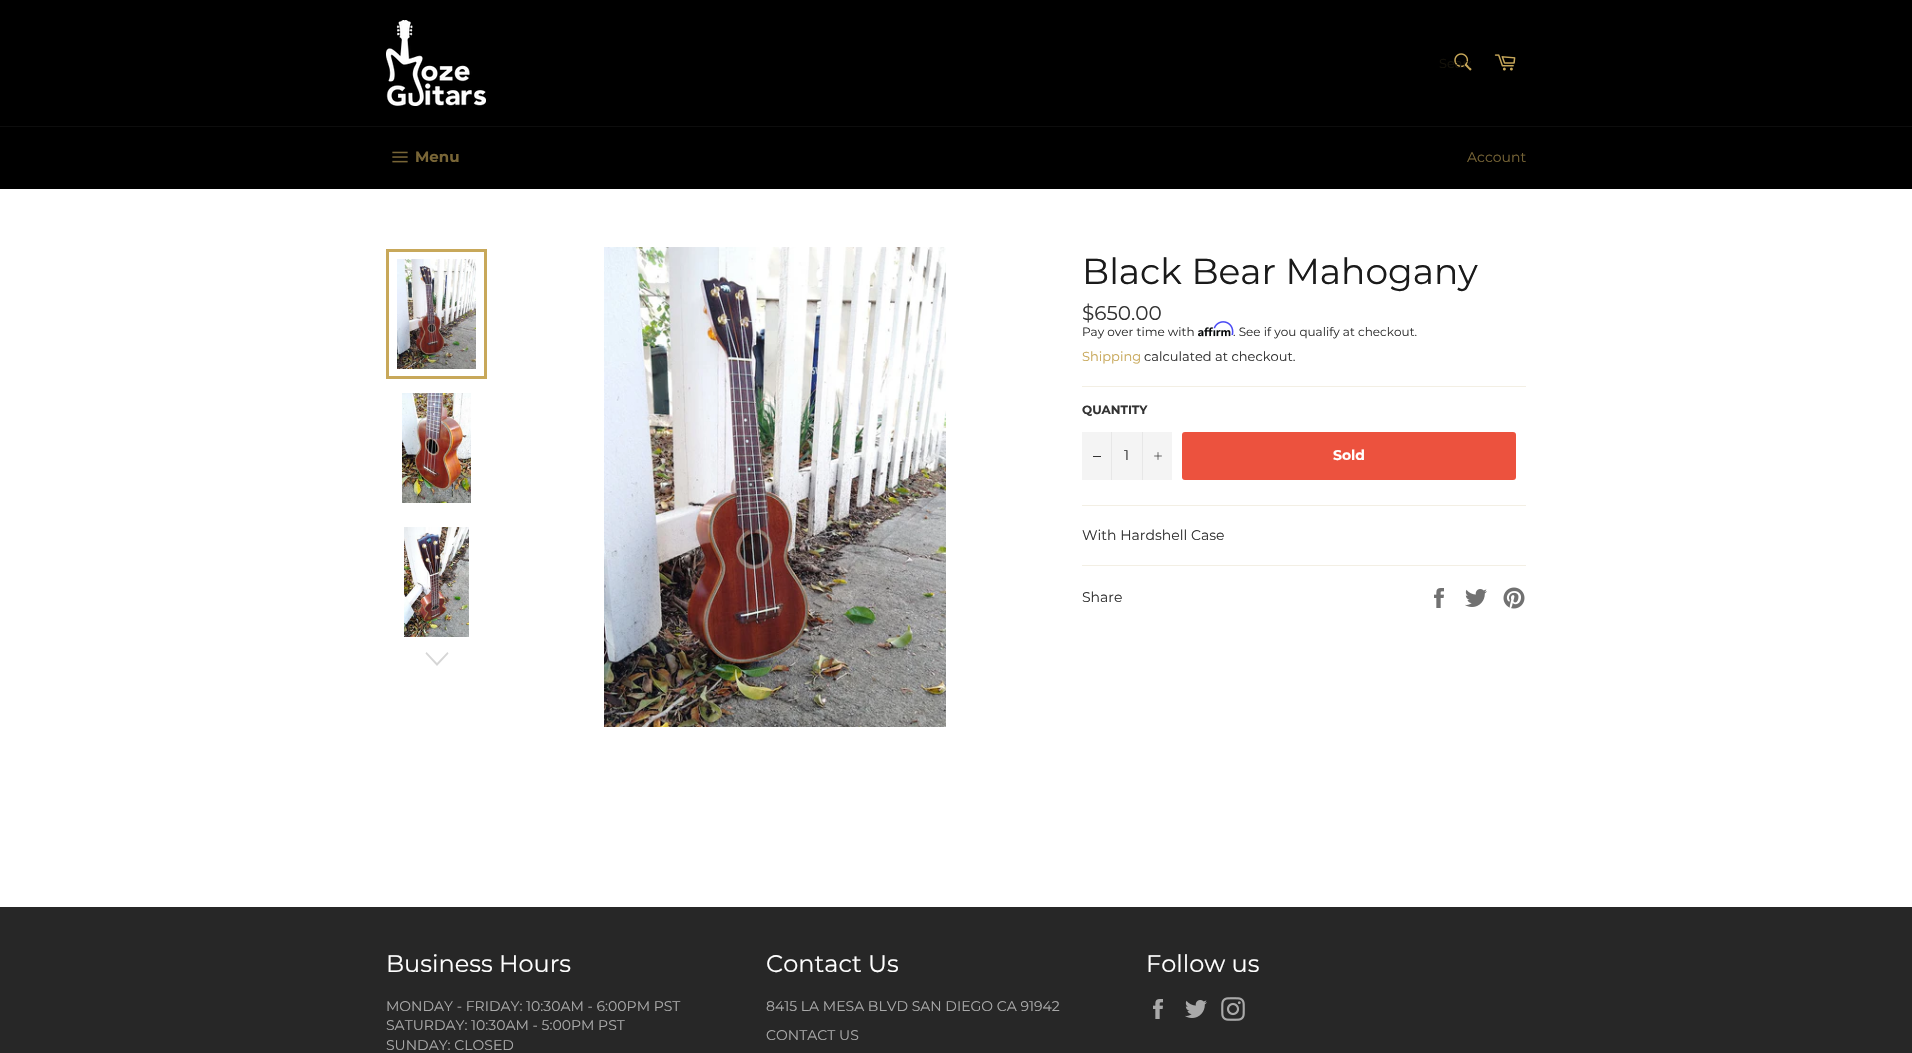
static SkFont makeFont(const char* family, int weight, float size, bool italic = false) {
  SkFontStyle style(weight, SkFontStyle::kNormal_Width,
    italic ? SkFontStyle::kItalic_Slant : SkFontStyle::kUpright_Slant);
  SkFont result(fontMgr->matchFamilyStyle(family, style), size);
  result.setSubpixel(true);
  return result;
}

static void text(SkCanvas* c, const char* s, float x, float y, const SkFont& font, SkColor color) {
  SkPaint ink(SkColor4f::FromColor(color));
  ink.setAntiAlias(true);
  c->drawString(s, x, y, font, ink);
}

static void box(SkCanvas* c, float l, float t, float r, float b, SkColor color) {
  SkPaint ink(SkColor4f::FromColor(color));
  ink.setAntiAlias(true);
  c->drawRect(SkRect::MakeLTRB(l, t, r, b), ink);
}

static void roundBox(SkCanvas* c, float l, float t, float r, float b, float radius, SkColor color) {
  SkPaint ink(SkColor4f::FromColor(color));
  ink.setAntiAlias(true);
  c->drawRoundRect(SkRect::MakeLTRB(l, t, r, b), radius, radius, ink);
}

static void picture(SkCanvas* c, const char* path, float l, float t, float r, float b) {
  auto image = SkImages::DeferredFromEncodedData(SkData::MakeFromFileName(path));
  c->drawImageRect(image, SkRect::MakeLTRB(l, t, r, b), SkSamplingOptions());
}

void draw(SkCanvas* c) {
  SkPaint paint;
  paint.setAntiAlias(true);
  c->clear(0xff000000);
  picture(c, "img_01.png", 386, 20, 486, 106);
  picture(c, "img_02.png", 1454, 53, 1472, 71);
  c->save();
  c->clipRect(SkRect::MakeLTRB(1439, 55, 1471, 71));
  SkFont face1 = makeFont("Montserrat", 400, 13);
  text(c, "Searc", 1439, 68, face1, 0xff141109);
  c->restore();
  picture(c, "img_03.png", 1494, 54, 1516, 71);
  box(c, 0, 126, 1912, 127, 0xff0d0d0d);
  picture(c, "img_04.png", 392, 151, 408, 163);
  SkFont face2 = makeFont("Montserrat", 700, 15);
  text(c, "Menu", 415, 162, face2, 0xff786536);
  SkFont face3 = makeFont("Montserrat", 400, 14);
  text(c, "Account", 1467, 162, face3, 0xff786536);
  box(c, 0, 189, 1912, 907, 0xffffffff);
  picture(c, "img_05.png", 397, 259, 476, 369);
  paint.setStyle(SkPaint::kStroke_Style);
  paint.setStrokeWidth(3);
  paint.setColor(0xffc8a85a);
  c->drawRect(SkRect::MakeLTRB(387.5f, 250.5f, 485.5f, 377.5f), paint);
  picture(c, "img_06.png", 402, 393, 471, 503);
  picture(c, "img_07.png", 404, 527, 469, 637);
  paint.setStyle(SkPaint::kFill_Style);
  paint.setColor(0xffd6d6d6);
  c->drawPath(SkPathBuilder().moveTo(447.5f, 652).lineTo(448.5f, 653.5f).lineTo(437, 666).lineTo(425.5f, 653.5f).lineTo(426.5f, 652).lineTo(437, 663).close().detach(), paint);
  picture(c, "img_08.png", 604, 247, 946, 727);
  SkFont face4 = makeFont("Montserrat", 400, 36);
  text(c, "Black Bear Mahogany", 1082, 284, face4, 0xff1a1a1a);
  SkFont face5 = makeFont("Montserrat", 400, 20);
  text(c, "$650.00", 1082, 320, face5, 0xff333333);
  SkFont face6 = makeFont("Montserrat", 400, 12);
  text(c, "Pay over time with", 1082, 336, face6, 0xff333333);
  picture(c, "img_10.png", 1198, 327, 1231, 337);
  text(c, ". See if you qualify at checkout.", 1233, 336, face6, 0xff333333);
  picture(c, "img_09.png", 1213, 321, 1234, 336);
  text(c, "Shipping", 1082, 361, face1, 0xffc8a85a);
  text(c, "calculated at checkout.", 1144, 361, face1, 0xff333333);
  box(c, 1082, 386, 1526, 387, 0xfff3efe4);
  SkFont face7 = makeFont("Montserrat", 700, 12);
  text(c, "QUANTITY", 1082, 414, face7, 0xff333333);
  box(c, 1082, 432, 1172, 480, 0xfff4f4f4);
  box(c, 1111, 432, 1112, 480, 0xffe7e7e7);
  box(c, 1093, 456, 1101, 457, 0xff333333);
  text(c, "1", 1124, 460, face3, 0xff333333);
  box(c, 1142, 432, 1143, 480, 0xffe7e7e7);
  picture(c, "img_11.png", 1154, 452, 1162, 460);
  roundBox(c, 1182, 432, 1516, 480, 3, 0xffec523e);
  SkFont face8 = makeFont("Montserrat", 700, 14);
  text(c, "Sold", 1333, 460, face8, 0xffffffff);
  box(c, 1082, 505, 1526, 506, 0xfff3efe4);
  text(c, "With Hardshell Case", 1082, 540, face3, 0xff333333);
  box(c, 1082, 565, 1526, 566, 0xfff3efe4);
  text(c, "Share", 1082, 602, face3, 0xff333333);
  picture(c, "img_12.png", 1434, 588, 1444, 608);
  picture(c, "img_13.png", 1465, 589, 1487, 607);
  picture(c, "img_14.png", 1503, 587, 1525, 609);
  box(c, 0, 907, 1912, 1053, 0xff272727);
  SkFont face9 = makeFont("Montserrat", 400, 24);
  text(c, "Business Hours", 386, 972, face9, 0xffffffff);
  text(c, "MONDAY - FRIDAY: 10:30AM - 6:00PM PST", 386, 1011, face3, 0xffa9a9a9);
  text(c, "SATURDAY: 10:30AM - 5:00PM PST", 386, 1030, face3, 0xffa9a9a9);
  text(c, "SUNDAY: CLOSED", 386, 1050, face3, 0xffa9a9a9);
  text(c, "Contact Us", 766, 972, face9, 0xffffffff);
  text(c, "8415 LA MESA BLVD SAN DIEGO CA 91942", 766, 1011, face3, 0xffa9a9a9);
  text(c, "CONTACT US", 766, 1040, face3, 0xffa9a9a9);
  text(c, "Follow us", 1146, 972, face9, 0xffffffff);
  picture(c, "img_15.png", 1153, 999, 1163, 1019);
  picture(c, "img_16.png", 1185, 1000, 1207, 1018);
  picture(c, "img_17.png", 1221, 997, 1245, 1021);
}
